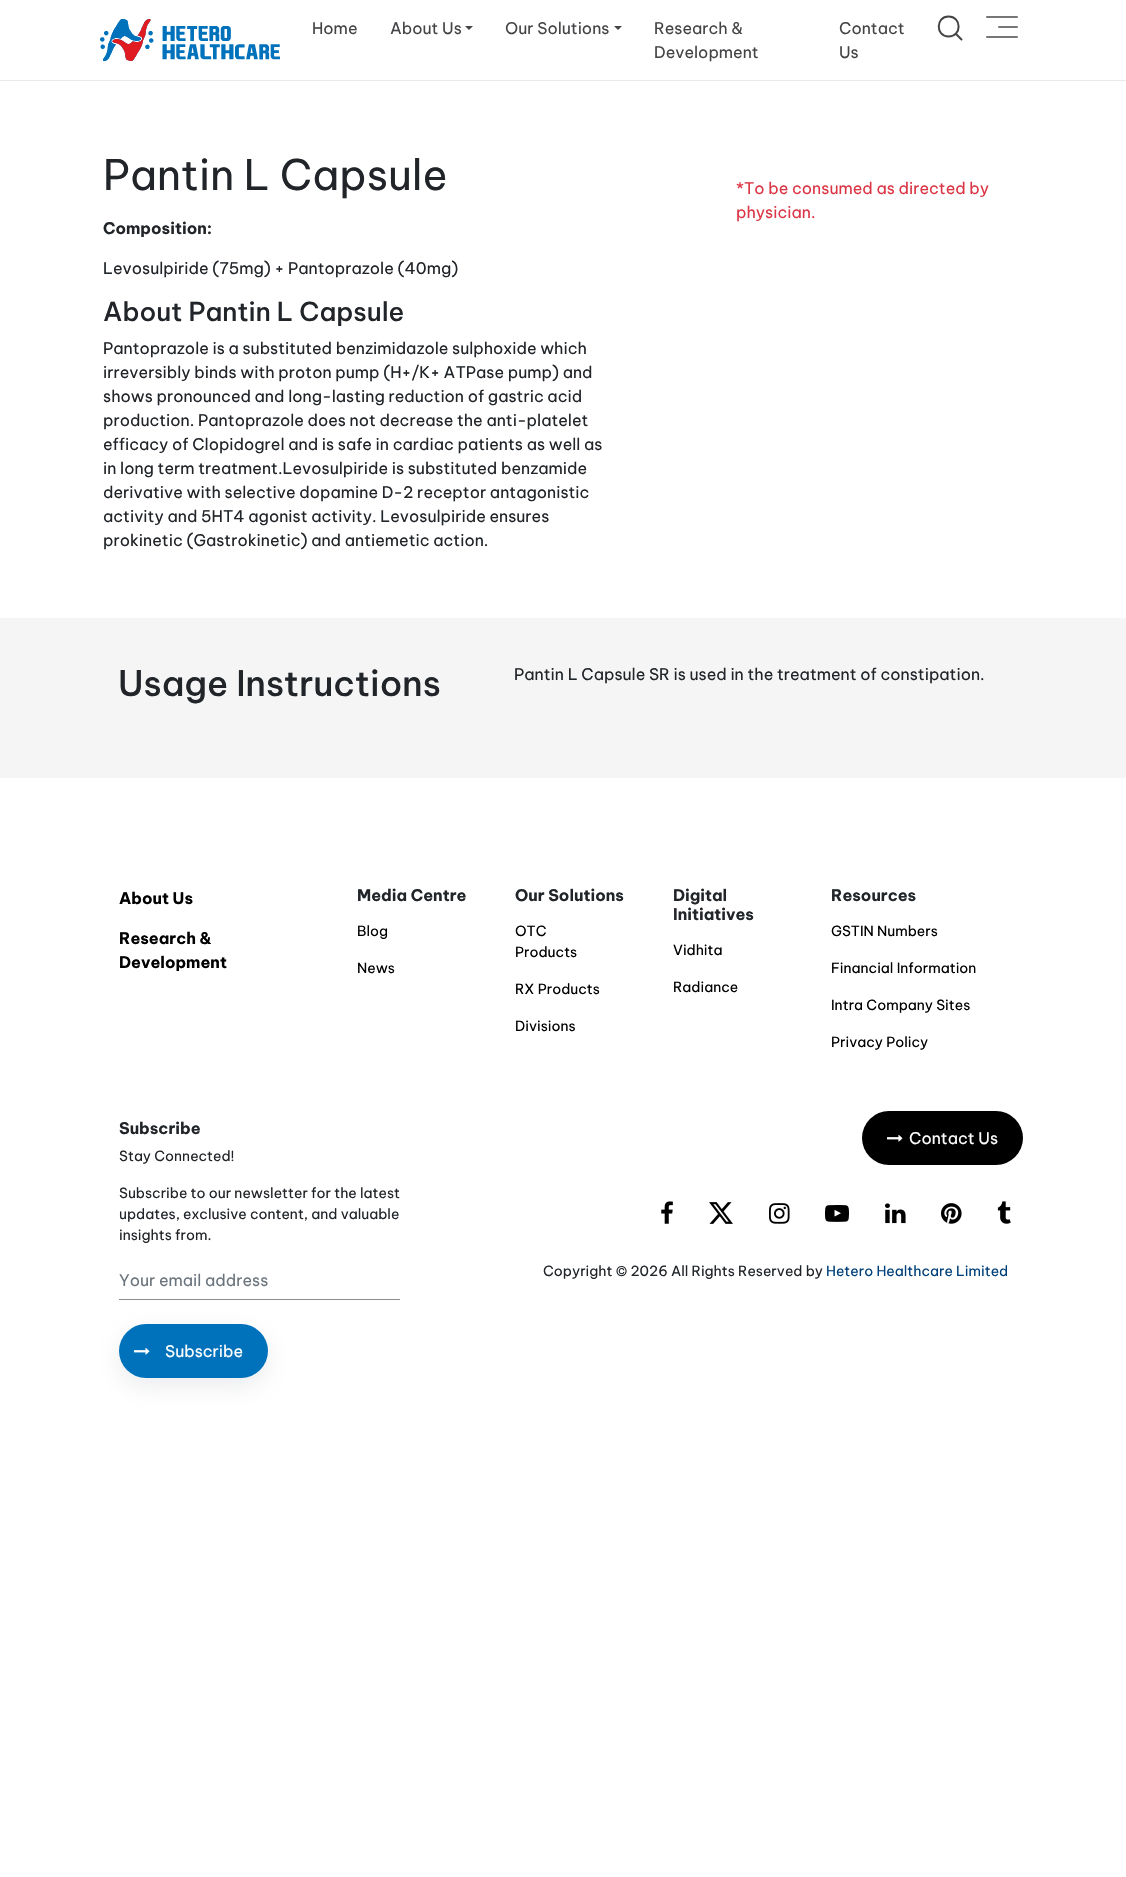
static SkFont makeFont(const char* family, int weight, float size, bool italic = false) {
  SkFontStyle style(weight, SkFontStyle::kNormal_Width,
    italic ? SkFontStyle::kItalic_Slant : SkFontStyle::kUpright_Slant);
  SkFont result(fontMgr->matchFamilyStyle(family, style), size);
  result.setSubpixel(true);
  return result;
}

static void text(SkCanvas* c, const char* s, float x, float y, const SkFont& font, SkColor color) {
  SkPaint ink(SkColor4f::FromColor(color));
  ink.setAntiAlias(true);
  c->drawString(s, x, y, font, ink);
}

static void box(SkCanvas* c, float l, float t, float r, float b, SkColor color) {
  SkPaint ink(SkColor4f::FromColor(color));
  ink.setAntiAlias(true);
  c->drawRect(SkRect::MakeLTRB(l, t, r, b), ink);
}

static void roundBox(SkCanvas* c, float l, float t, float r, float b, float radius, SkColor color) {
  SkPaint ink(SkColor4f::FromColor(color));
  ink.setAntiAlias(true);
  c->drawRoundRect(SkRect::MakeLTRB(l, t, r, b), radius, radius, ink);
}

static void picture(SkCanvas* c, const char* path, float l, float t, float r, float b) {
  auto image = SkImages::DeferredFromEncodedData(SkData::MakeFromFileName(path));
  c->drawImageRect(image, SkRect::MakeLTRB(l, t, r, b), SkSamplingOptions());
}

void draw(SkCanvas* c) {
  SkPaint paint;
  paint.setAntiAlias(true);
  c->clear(0xffffffff);
  box(c, 0, 80, 1126, 81, 0xffe9e9e9);
  picture(c, "img_01.png", 100, 19, 280, 61);
  SkFont face1 = makeFont("Be Vietnam Pro", 400, 16);
  text(c, "Home", 312, 34, face1, 0xff454346);
  text(c, "About Us", 390, 34, face1, 0xff454346);
  paint.setColor(0xff454346);
  c->drawPath(SkPathBuilder().moveTo(465, 26).lineTo(473, 26).lineTo(469, 30).close().detach(), paint);
  text(c, "Our Solutions", 505, 34, face1, 0xff454346);
  c->drawPath(SkPathBuilder().moveTo(614, 26).lineTo(622, 26).lineTo(618, 30).close().detach(), paint);
  text(c, "Research &", 654, 34, face1, 0xff454346);
  text(c, "Development", 654, 58, face1, 0xff454346);
  text(c, "Contact", 839, 34, face1, 0xff454346);
  text(c, "Us", 839, 58, face1, 0xff454346);
  paint.setStyle(SkPaint::kStroke_Style);
  paint.setStrokeWidth(2);
  paint.setStrokeCap(SkPaint::kRound_Cap);
  paint.setStrokeJoin(SkPaint::kRound_Join);
  c->drawPath(SkPathBuilder().moveTo(948.5f, 36.5f).cubicTo(962, 36.5f, 962, 16.5f, 948.5f, 16.5f).cubicTo(935.5f, 16.5f, 935.5f, 36.5f, 948.5f, 36.5f).close().moveTo(961.5f, 39.5f).lineTo(956, 34).detach(), paint);
  roundBox(c, 986, 16, 1018, 18, 1, 0xff767676);
  roundBox(c, 998, 26, 1018, 28, 1, 0xff767676);
  roundBox(c, 986, 36, 1018, 38, 1, 0xff767676);
  SkFont face2 = makeFont("Be Vietnam Pro", 400, 42);
  text(c, "Pantin L Capsule", 103, 190, face2, 0xff212529);
  SkFont face3 = makeFont("Be Vietnam Pro", 700, 16);
  text(c, "Composition:", 103, 234, face3, 0xff212529);
  text(c, "Levosulpiride (75mg) + Pantoprazole (40mg)", 103, 274, face1, 0xff212529);
  SkFont face4 = makeFont("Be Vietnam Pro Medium", 500, 26);
  text(c, "About Pantin L Capsule", 103, 321, face4, 0xff212529);
  text(c, "Pantoprazole is a substituted benzimidazole sulphoxide which", 103, 354, face1, 0xff212529);
  text(c, "irreversibly binds with proton pump (H+/K+ ATPase pump) and", 103, 378, face1, 0xff212529);
  text(c, "shows pronounced and long-lasting reduction of gastric acid", 103, 402, face1, 0xff212529);
  text(c, "production. Pantoprazole does not decrease the anti-platelet", 103, 426, face1, 0xff212529);
  text(c, "efficacy of Clopidogrel and is safe in cardiac patients as well as", 103, 450, face1, 0xff212529);
  text(c, "in long term treatment.Levosulpiride is substituted benzamide", 103, 474, face1, 0xff212529);
  text(c, "derivative with selective dopamine D-2 receptor antagonistic", 103, 498, face1, 0xff212529);
  text(c, "activity and 5HT4 agonist activity. Levosulpiride ensures", 103, 522, face1, 0xff212529);
  text(c, "prokinetic (Gastrokinetic) and antiemetic action.", 103, 546, face1, 0xff212529);
  text(c, "*To be consumed as directed by", 736, 194, face1, 0xffdc3545);
  text(c, "physician.", 736, 218, face1, 0xffdc3545);
  box(c, 0, 618, 1126, 778, 0xfff5f5f5);
  SkFont face5 = makeFont("Be Vietnam Pro Medium", 500, 35);
  text(c, "Usage Instructions", 118, 696, face5, 0xff212529);
  text(c, "Pantin L Capsule SR is used in the treatment of constipation.", 514, 680, face1, 0xff212529);
  text(c, "About Us", 119, 904, face3, 0xff000000);
  text(c, "Research &", 119, 944, face3, 0xff000000);
  text(c, "Development", 119, 968, face3, 0xff000000);
  text(c, "Media Centre", 357, 901, face3, 0xff212529);
  SkFont face6 = makeFont("Be Vietnam Pro", 400, 14);
  text(c, "Blog", 357, 936, face6, 0xff000000);
  text(c, "News", 357, 973, face6, 0xff000000);
  text(c, "Our Solutions", 515, 901, face3, 0xff212529);
  text(c, "OTC", 515, 936, face6, 0xff000000);
  text(c, "Products", 515, 957, face6, 0xff000000);
  text(c, "RX Products", 515, 994, face6, 0xff000000);
  text(c, "Divisions", 515, 1031, face6, 0xff000000);
  text(c, "Digital", 673, 901, face3, 0xff212529);
  text(c, "Initiatives", 673, 920, face3, 0xff212529);
  text(c, "Vidhita", 673, 955, face6, 0xff000000);
  text(c, "Radiance", 673, 992, face6, 0xff000000);
  text(c, "Resources", 831, 901, face3, 0xff212529);
  text(c, "GSTIN Numbers", 831, 936, face6, 0xff000000);
  text(c, "Financial Information", 831, 973, face6, 0xff000000);
  text(c, "Intra Company Sites", 831, 1010, face6, 0xff000000);
  text(c, "Privacy Policy", 831, 1047, face6, 0xff000000);
  text(c, "Subscribe", 119, 1134, face3, 0xff212529);
  text(c, "Stay Connected!", 119, 1161, face6, 0xff212529);
  text(c, "Subscribe to our newsletter for the latest", 119, 1198, face6, 0xff212529);
  text(c, "updates, exclusive content, and valuable", 119, 1219, face6, 0xff212529);
  text(c, "insights from.", 119, 1240, face6, 0xff212529);
  paint.setStyle(SkPaint::kFill_Style);
  paint.setColor(0x33959da5);
  paint.setMaskFilter(SkMaskFilter::MakeBlur(kNormal_SkBlurStyle, 12));
  c->drawRoundRect(SkRect::MakeLTRB(119, 1332, 268, 1386), 27, 27, paint);
  paint.setMaskFilter(nullptr);
  box(c, 119, 1299, 400, 1300, 0xff8d8d8d);
  text(c, "Your email address", 119, 1286, face1, 0xff6c757d);
  roundBox(c, 119, 1324, 268, 1378, 27, 0xff0072bc);
  picture(c, "img_02.png", 134, 1347, 150, 1355);
  text(c, "Subscribe", 165, 1357, face1, 0xffffffff);
  roundBox(c, 862, 1111, 1023, 1165, 27, 0xff000000);
  picture(c, "img_03.png", 887, 1134, 903, 1142);
  text(c, "Contact Us", 909, 1144, face1, 0xffffffff);
  picture(c, "img_04.png", 661, 1201, 673, 1224);
  picture(c, "img_05.png", 709, 1202, 733, 1224);
  picture(c, "img_06.png", 769, 1203, 790, 1224);
  picture(c, "img_07.png", 825, 1205, 849, 1222);
  picture(c, "img_08.png", 885, 1203, 906, 1224);
  picture(c, "img_09.png", 941, 1203, 962, 1224);
  picture(c, "img_10.png", 997, 1201, 1011, 1224);
  text(c, "Copyright © 2026 All Rights Reserved by", 543, 1276, face6, 0xff212529);
  text(c, "Hetero Healthcare Limited", 826, 1276, face6, 0xff00407a);
}
